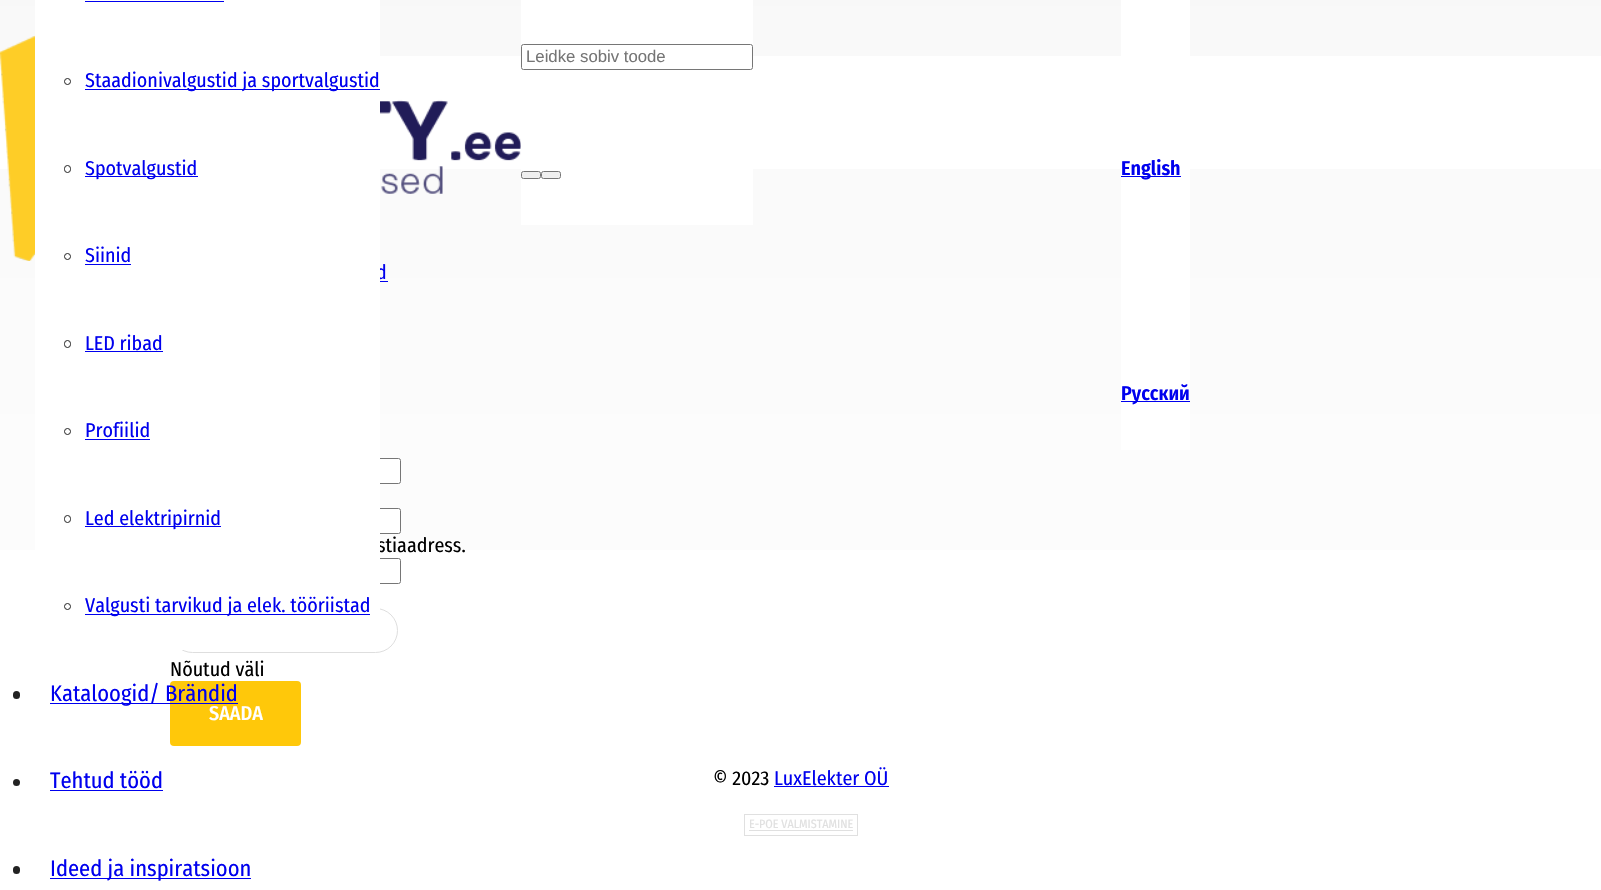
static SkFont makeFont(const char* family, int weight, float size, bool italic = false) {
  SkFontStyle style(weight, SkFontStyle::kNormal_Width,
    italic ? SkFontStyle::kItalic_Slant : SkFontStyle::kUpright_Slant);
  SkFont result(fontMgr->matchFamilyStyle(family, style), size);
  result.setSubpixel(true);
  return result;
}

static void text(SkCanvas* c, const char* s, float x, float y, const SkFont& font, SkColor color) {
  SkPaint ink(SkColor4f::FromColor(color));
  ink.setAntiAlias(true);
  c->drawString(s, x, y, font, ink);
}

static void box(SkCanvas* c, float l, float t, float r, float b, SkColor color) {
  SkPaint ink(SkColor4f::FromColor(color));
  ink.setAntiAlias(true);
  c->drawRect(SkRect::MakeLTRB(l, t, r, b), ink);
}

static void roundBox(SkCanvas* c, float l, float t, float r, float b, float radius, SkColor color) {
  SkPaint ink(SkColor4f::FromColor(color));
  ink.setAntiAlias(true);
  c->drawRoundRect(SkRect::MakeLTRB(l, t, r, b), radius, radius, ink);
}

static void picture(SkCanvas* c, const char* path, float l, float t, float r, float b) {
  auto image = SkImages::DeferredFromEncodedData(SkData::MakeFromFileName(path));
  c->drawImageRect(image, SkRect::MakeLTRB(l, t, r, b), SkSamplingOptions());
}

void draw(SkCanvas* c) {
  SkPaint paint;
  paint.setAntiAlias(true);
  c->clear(0xffffffff);
  {
    const SkColor colors[] = {0xfff6f6f6, 0xffffffff};
    const float stops[] = {0, 1};
    const SkPoint ends[] = {{801, -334}, {801, 890}};
    paint.setShader(SkGradientShader::MakeLinear(ends, colors, stops, 2, SkTileMode::kClamp));
    paint.setAlpha(255);
  }
  c->drawRect(SkRect::MakeLTRB(0, 0, 1601, 550), paint);
  box(c, 0, 56, 1601, 169, 0xffffffff);
  picture(c, "img_01.png", 0, 35, 521, 261);
  SkFont face1 = makeFont("Fira Sans Condensed", 400, 20);
  text(c, "d", 376, 279, face1, 0xff0000ee);
  paint.setShader(nullptr);
  paint.setColor(0xffffffff);
  c->drawRoundRect(SkRect::MakeLTRB(170.5f, 458.5f, 400.5f, 483.5f), 2, 2, paint);
  paint.setStyle(SkPaint::kStroke_Style);
  paint.setStrokeWidth(1);
  paint.setColor(0xff767676);
  c->drawRoundRect(SkRect::MakeLTRB(170.5f, 458.5f, 400.5f, 483.5f), 2, 2, paint);
  paint.setStyle(SkPaint::kFill_Style);
  paint.setColor(0xffffffff);
  c->drawRoundRect(SkRect::MakeLTRB(170.5f, 508.5f, 400.5f, 533.5f), 2, 2, paint);
  paint.setStyle(SkPaint::kStroke_Style);
  paint.setColor(0xff767676);
  c->drawRoundRect(SkRect::MakeLTRB(170.5f, 508.5f, 400.5f, 533.5f), 2, 2, paint);
  text(c, "stiaadress.", 377, 552, face1, 0xff000000);
  c->drawRoundRect(SkRect::MakeLTRB(170.5f, 558.5f, 400.5f, 583.5f), 2, 2, paint);
  paint.setColor(0xffdedede);
  c->drawRoundRect(SkRect::MakeLTRB(170.5f, 608.5f, 397.5f, 652.5f), 22, 22, paint);
  box(c, 35, 0, 380, 650, 0xffffffff);
  box(c, 85, 1, 224, 2, 0xff0000ee);
  paint.setColor(0xff222222);
  c->drawCircle(67.5f, 81.5f, 3, paint);
  box(c, 85, 89, 380, 90, 0xff0000ee);
  text(c, "Staadionivalgustid ja sportvalgustid", 85, 87, face1, 0xff0000ee);
  c->drawRoundRect(SkRect::MakeLTRB(64.5f, 165.5f, 70.5f, 172.5f), 3, 3, paint);
  box(c, 85, 176, 198, 177, 0xff0000ee);
  text(c, "Spotvalgustid", 85, 175, face1, 0xff0000ee);
  c->drawCircle(67.5f, 256.5f, 3, paint);
  text(c, "Siinid", 85, 262, face1, 0xff0000ee);
  box(c, 85, 264, 131, 265, 0xff0000ee);
  c->drawRoundRect(SkRect::MakeLTRB(64.5f, 340.5f, 70.5f, 347.5f), 3, 3, paint);
  text(c, "LED ribad", 85, 350, face1, 0xff0000ee);
  box(c, 85, 351, 163, 352, 0xff0000ee);
  c->drawCircle(67.5f, 431.5f, 3, paint);
  text(c, "Profiilid", 85, 437, face1, 0xff0000ee);
  box(c, 85, 439, 150, 440, 0xff0000ee);
  c->drawRoundRect(SkRect::MakeLTRB(64.5f, 515.5f, 70.5f, 522.5f), 3, 3, paint);
  box(c, 85, 526, 221, 527, 0xff0000ee);
  text(c, "Led elektripirnid", 85, 525, face1, 0xff0000ee);
  c->drawCircle(67.5f, 606.5f, 3, paint);
  box(c, 85, 614, 370, 615, 0xff0000ee);
  text(c, "Valgusti tarvikud ja elek. tööriistad", 85, 612, face1, 0xff0000ee);
  roundBox(c, 13, 691, 20, 699, 3.5f, 0xff222222);
  roundBox(c, 170, 681, 301, 746, 4, 0xffffc80a);
  box(c, 50, 703, 238, 704, 0xff0000ee);
  SkFont face2 = makeFont("Fira Sans Condensed", 400, 22.5f);
  text(c, "Kataloogid/ Brändid", 50, 701, face2, 0xff0000ee);
  paint.setStyle(SkPaint::kFill_Style);
  c->drawCircle(16.5f, 782.5f, 3.5f, paint);
  text(c, "Tehtud tööd", 50, 788, face2, 0xff0000ee);
  box(c, 50, 790, 163, 791, 0xff0000ee);
  roundBox(c, 13, 866, 20, 874, 3.5f, 0xff222222);
  box(c, 50, 878, 251, 879, 0xff0000ee);
  text(c, "Ideed ja inspiratsioon", 50, 876, face2, 0xff0000ee);
  box(c, 521, 0, 753, 225, 0xffffffff);
  paint.setStyle(SkPaint::kStroke_Style);
  paint.setColor(0xff767676);
  c->drawRoundRect(SkRect::MakeLTRB(521.5f, 44.5f, 752.5f, 69.5f), 2, 2, paint);
  SkFont face3 = makeFont("Liberation Sans", 400, 16.75f);
  text(c, "Leidke sobiv toode", 526, 62, face3, 0xff757575);
  paint.setStyle(SkPaint::kFill_Style);
  paint.setColor(0xffefefef);
  c->drawRoundRect(SkRect::MakeLTRB(521.5f, 171.5f, 540.5f, 178.5f), 2, 2, paint);
  paint.setStyle(SkPaint::kStroke_Style);
  paint.setColor(0xff767676);
  c->drawRoundRect(SkRect::MakeLTRB(521.5f, 171.5f, 540.5f, 178.5f), 2, 2, paint);
  paint.setStyle(SkPaint::kFill_Style);
  paint.setColor(0xffefefef);
  c->drawRoundRect(SkRect::MakeLTRB(541.5f, 171.5f, 560.5f, 178.5f), 2, 2, paint);
  paint.setStyle(SkPaint::kStroke_Style);
  paint.setColor(0xff767676);
  c->drawRoundRect(SkRect::MakeLTRB(541.5f, 171.5f, 560.5f, 178.5f), 2, 2, paint);
  box(c, 1121, 0, 1190, 450, 0xffffffff);
  box(c, 1121, 176, 1181, 177, 0xff0000ee);
  SkFont face4 = makeFont("Fira Sans Condensed", 600, 20);
  text(c, "English", 1121, 175, face4, 0xff0000ee);
  box(c, 1121, 401, 1190, 402, 0xff0000ee);
  text(c, "Русский", 1121, 400, face4, 0xff0000ee);
  box(c, 380, 281, 388, 282, 0xff0000ee);
  text(c, "Nõutud väli", 170, 676, face1, 0xff000000);
  SkFont face5 = makeFont("Fira Sans Condensed", 500, 20);
  text(c, "SAADA", 209, 720, face5, 0xffffffff);
  text(c, "© 2023", 713, 785, face1, 0xff000000);
  text(c, "LuxElekter OÜ", 774, 785, face1, 0xff0000ee);
  box(c, 774, 786, 889, 787, 0xff0000ee);
  paint.setColor(0xffe0e0e0);
  c->drawRect(SkRect::MakeLTRB(744.5f, 814.5f, 857.5f, 835.5f), paint);
  SkFont face6 = makeFont("Fira Sans Condensed", 400, 12);
  text(c, "E-POE VALMISTAMINE", 749, 828, face6, 0xffe0e0e0);
  box(c, 749, 830, 853, 831, 0xffe0e0e0);
}
